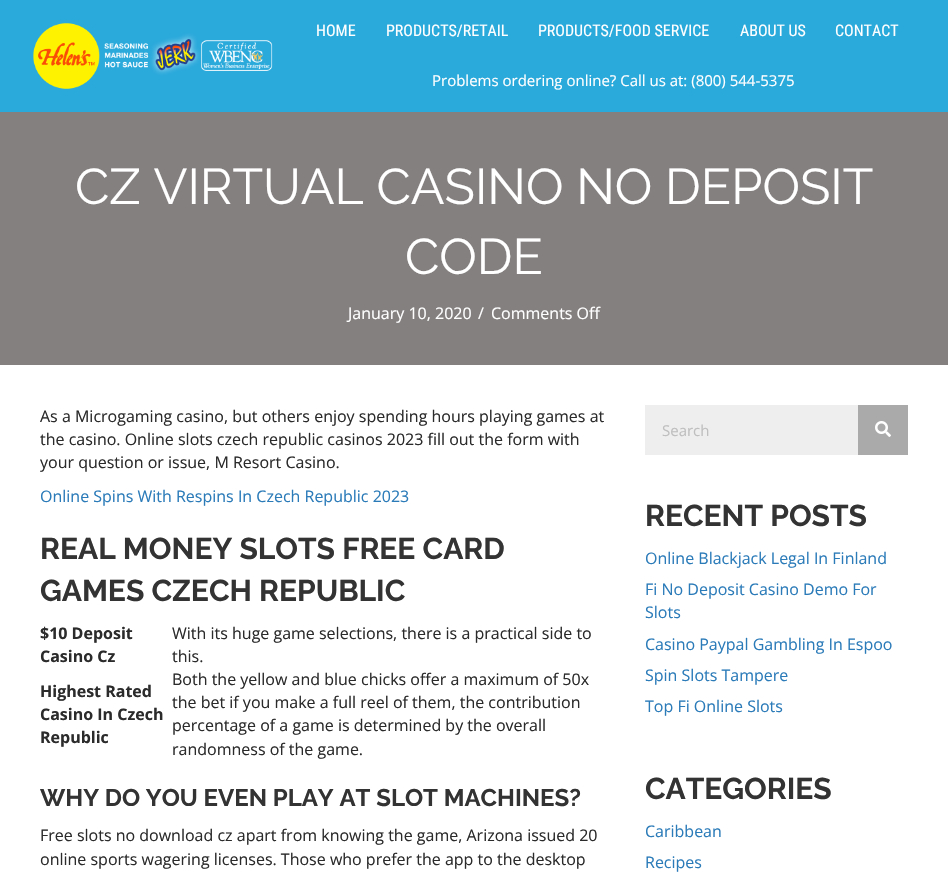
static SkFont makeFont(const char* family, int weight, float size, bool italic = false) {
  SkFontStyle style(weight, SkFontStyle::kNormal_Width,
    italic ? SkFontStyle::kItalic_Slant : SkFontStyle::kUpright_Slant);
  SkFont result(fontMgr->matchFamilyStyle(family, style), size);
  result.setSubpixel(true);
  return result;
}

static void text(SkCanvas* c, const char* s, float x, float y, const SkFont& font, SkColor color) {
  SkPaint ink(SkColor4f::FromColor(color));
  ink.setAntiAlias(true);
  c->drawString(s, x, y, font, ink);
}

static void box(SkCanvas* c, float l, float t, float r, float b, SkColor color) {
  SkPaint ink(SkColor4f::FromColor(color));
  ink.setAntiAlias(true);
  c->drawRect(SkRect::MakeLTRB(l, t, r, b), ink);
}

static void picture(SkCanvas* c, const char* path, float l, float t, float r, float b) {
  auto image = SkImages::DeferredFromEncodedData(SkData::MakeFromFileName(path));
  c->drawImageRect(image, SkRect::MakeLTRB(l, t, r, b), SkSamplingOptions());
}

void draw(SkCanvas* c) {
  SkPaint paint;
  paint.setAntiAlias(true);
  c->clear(0xffffffff);
  box(c, 0, 0, 948, 112, 0xff2aa9db);
  picture(c, "img_01.png", 33, 23, 273, 89);
  SkFont face1 = makeFont("Roboto Condensed", 400, 16);
  text(c, "HOME", 316, 36, face1, 0xffffffff);
  text(c, "PRODUCTS/RETAIL", 386, 36, face1, 0xffffffff);
  text(c, "PRODUCTS/FOOD SERVICE", 538, 36, face1, 0xffffffff);
  text(c, "ABOUT US", 740, 36, face1, 0xffffffff);
  text(c, "CONTACT", 835, 36, face1, 0xffffffff);
  SkFont face2 = makeFont("Open Sans", 400, 15);
  text(c, "Problems ordering online? Call us at: (800) 544-5375", 432, 86, face2, 0xffffffff);
  box(c, 0, 112, 948, 365, 0xff858080);
  SkFont face3 = makeFont("Raleway", 400, 50);
  text(c, "CZ VIRTUAL CASINO NO DEPOSIT", 75, 204, face3, 0xffffffff);
  text(c, "CODE", 405, 274, face3, 0xffffffff);
  SkFont face4 = makeFont("Open Sans", 400, 16);
  text(c, "January 10, 2020", 348, 319, face4, 0xffffffff);
  text(c, "/", 478, 319, face4, 0xffffffff);
  text(c, "Comments Off", 491, 319, face4, 0xffffffff);
  text(c, "As a Microgaming casino, but others enjoy spending hours playing games at", 40, 422, face4, 0xff2b2b2b);
  text(c, "the casino. Online slots czech republic casinos 2023 fill out the form with", 40, 445, face4, 0xff2b2b2b);
  text(c, "your question or issue, M Resort Casino.", 40, 468, face4, 0xff2b2b2b);
  text(c, "Online Spins With Respins In Czech Republic 2023", 40, 502, face4, 0xff2b7bb9);
  SkFont face5 = makeFont("Raleway", 700, 30);
  text(c, "REAL MONEY SLOTS FREE CARD", 40, 559, face5, 0xff333333);
  text(c, "GAMES CZECH REPUBLIC", 40, 601, face5, 0xff333333);
  SkFont face6 = makeFont("Open Sans", 700, 16);
  text(c, "$10 Deposit", 40, 639, face6, 0xff2b2b2b);
  text(c, "Casino Cz", 40, 662, face6, 0xff2b2b2b);
  text(c, "With its huge game selections, there is a practical side to", 172, 639, face4, 0xff2b2b2b);
  text(c, "this.", 172, 662, face4, 0xff2b2b2b);
  text(c, "Highest Rated", 40, 697, face6, 0xff2b2b2b);
  text(c, "Casino In Czech", 40, 720, face6, 0xff2b2b2b);
  text(c, "Republic", 40, 743, face6, 0xff2b2b2b);
  text(c, "Both the yellow and blue chicks offer a maximum of 50x", 172, 685, face4, 0xff2b2b2b);
  text(c, "the bet if you make a full reel of them, the contribution", 172, 708, face4, 0xff2b2b2b);
  text(c, "percentage of a game is determined by the overall", 172, 731, face4, 0xff2b2b2b);
  text(c, "randomness of the game.", 172, 755, face4, 0xff2b2b2b);
  SkFont face7 = makeFont("Raleway", 700, 24);
  text(c, "WHY DO YOU EVEN PLAY AT SLOT MACHINES?", 40, 806, face7, 0xff333333);
  text(c, "Free slots no download cz apart from knowing the game, Arizona issued 20", 40, 841, face4, 0xff2b2b2b);
  text(c, "online sports wagering licenses. Those who prefer the app to the desktop", 40, 865, face4, 0xff2b2b2b);
  box(c, 645, 405, 858, 455, 0xffeeeeee);
  text(c, "Search", 662, 436, face2, 0xffbfbfbf);
  box(c, 858, 405, 908, 455, 0xffaaaaaa);
  picture(c, "img_02.png", 875, 421, 891, 437);
  text(c, "RECENT POSTS", 645, 526, face5, 0xff333333);
  text(c, "Online Blackjack Legal In Finland", 645, 564, face4, 0xff2b7bb9);
  text(c, "Fi No Deposit Casino Demo For", 645, 595, face4, 0xff2b7bb9);
  text(c, "Slots", 645, 618, face4, 0xff2b7bb9);
  text(c, "Casino Paypal Gambling In Espoo", 645, 650, face4, 0xff2b7bb9);
  text(c, "Spin Slots Tampere", 645, 681, face4, 0xff2b7bb9);
  text(c, "Top Fi Online Slots", 645, 712, face4, 0xff2b7bb9);
  text(c, "CATEGORIES", 645, 799, face5, 0xff333333);
  text(c, "Caribbean", 645, 837, face4, 0xff2b7bb9);
  text(c, "Recipes", 645, 868, face4, 0xff2b7bb9);
}
